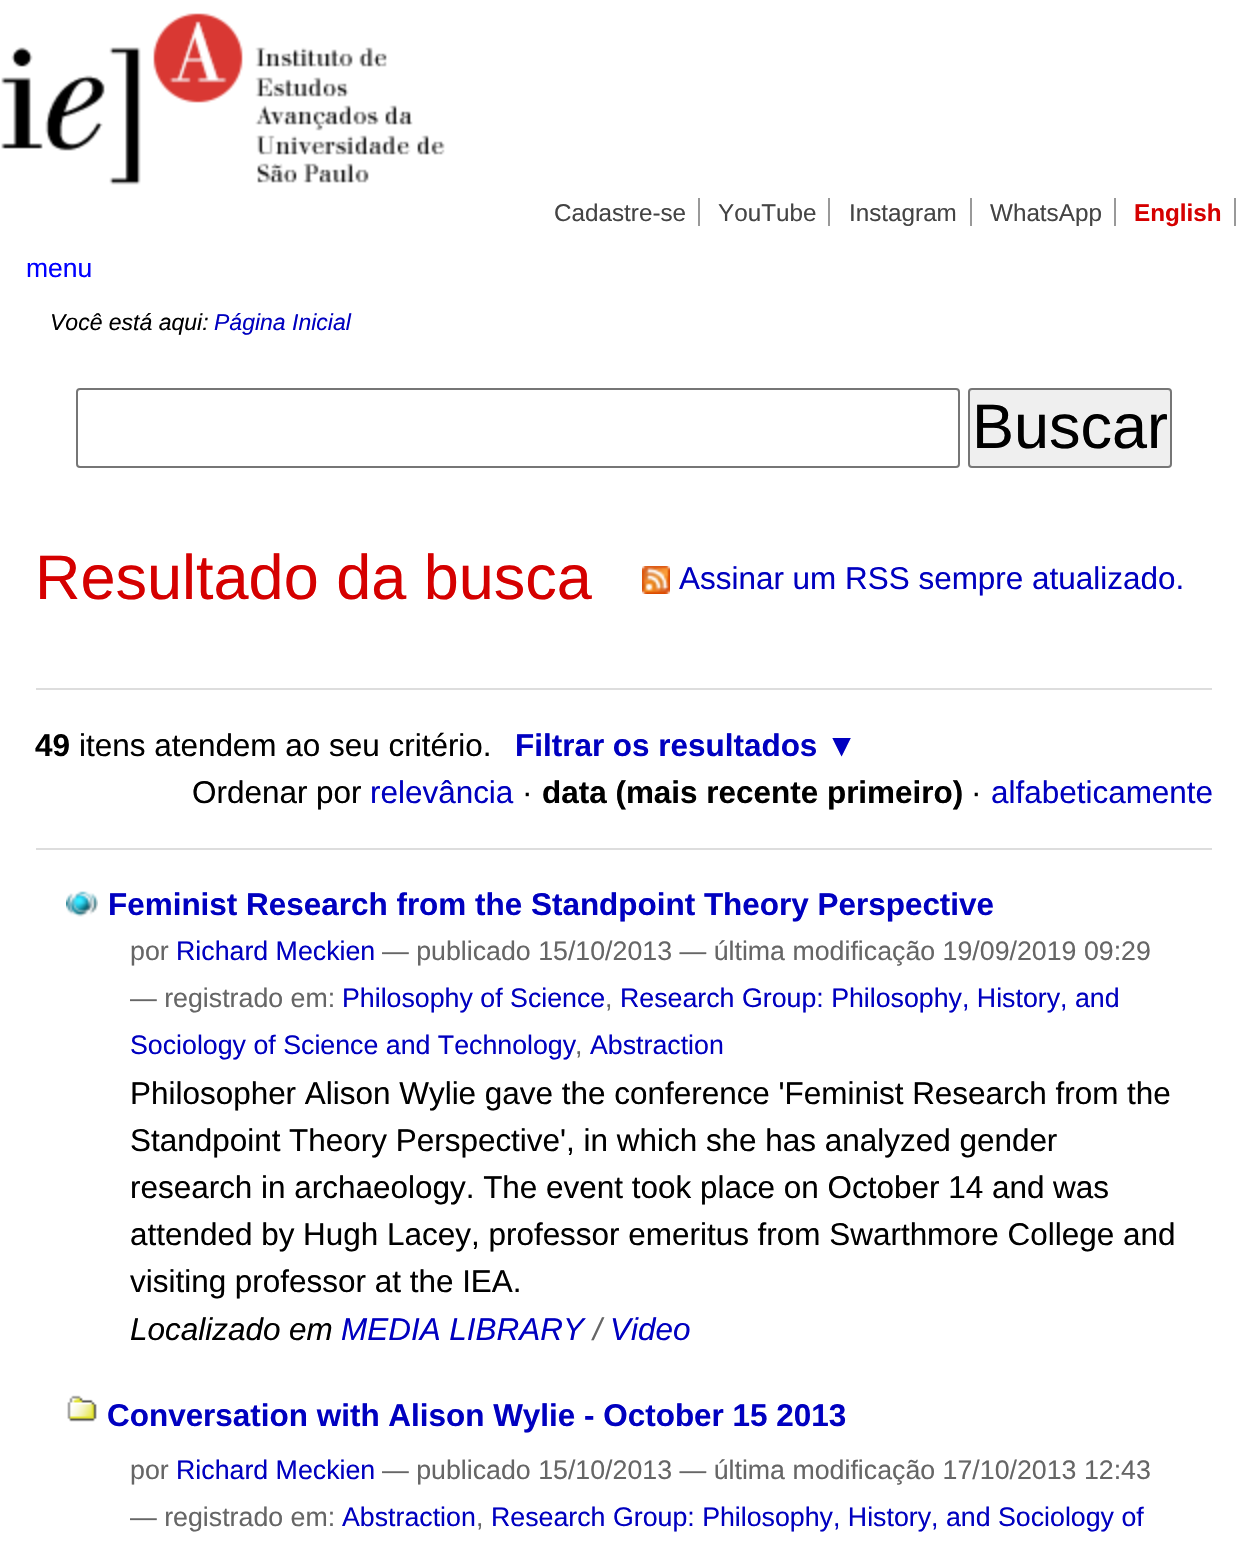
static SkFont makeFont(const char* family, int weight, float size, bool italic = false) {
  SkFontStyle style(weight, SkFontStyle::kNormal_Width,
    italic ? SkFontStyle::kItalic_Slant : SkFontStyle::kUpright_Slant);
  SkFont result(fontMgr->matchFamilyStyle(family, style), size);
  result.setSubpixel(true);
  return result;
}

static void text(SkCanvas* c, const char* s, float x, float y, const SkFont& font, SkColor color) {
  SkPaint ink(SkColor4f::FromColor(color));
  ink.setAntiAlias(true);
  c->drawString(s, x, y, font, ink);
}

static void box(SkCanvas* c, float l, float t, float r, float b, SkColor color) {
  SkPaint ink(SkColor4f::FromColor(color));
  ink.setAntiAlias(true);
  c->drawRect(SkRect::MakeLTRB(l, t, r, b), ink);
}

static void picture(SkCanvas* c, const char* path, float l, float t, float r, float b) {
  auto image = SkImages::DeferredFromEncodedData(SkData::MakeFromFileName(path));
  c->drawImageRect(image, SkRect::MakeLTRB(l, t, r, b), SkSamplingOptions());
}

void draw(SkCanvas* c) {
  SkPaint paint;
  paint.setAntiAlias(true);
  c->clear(0xffffffff);
  picture(c, "img_01.png", 1, 13, 445, 185);
  SkFont face1 = makeFont("Liberation Sans", 400, 24.25f);
  text(c, "Cadastre-se", 554, 221, face1, 0xff444444);
  box(c, 698, 198, 700, 226, 0xff999999);
  text(c, "YouTube", 718, 221, face1, 0xff444444);
  box(c, 828, 198, 830, 226, 0xff999999);
  text(c, "Instagram", 849, 221, face1, 0xff444444);
  box(c, 970, 198, 972, 226, 0xff999999);
  text(c, "WhatsApp", 990, 221, face1, 0xff444444);
  box(c, 1114, 198, 1116, 226, 0xff999999);
  SkFont face2 = makeFont("Liberation Sans", 700, 24.25f);
  text(c, "English", 1134, 221, face2, 0xffd50000);
  box(c, 1234, 198, 1236, 226, 0xff999999);
  SkFont face3 = makeFont("Liberation Sans", 400, 26.5f);
  text(c, "menu", 26, 277, face3, 0xff0000ff);
  SkFont face4 = makeFont("Liberation Sans", 400, 23, true);
  text(c, "Você está aqui:", 50, 330, face4, 0xff000000);
  text(c, "Página Inicial", 214, 330, face4, 0xff0000c0);
  paint.setStyle(SkPaint::kStroke_Style);
  paint.setStrokeWidth(2);
  paint.setColor(0xff767676);
  c->drawRoundRect(SkRect::MakeLTRB(77, 389, 959, 467), 3, 3, paint);
  paint.setStyle(SkPaint::kFill_Style);
  paint.setColor(0xffefefef);
  c->drawRoundRect(SkRect::MakeLTRB(969, 389, 1171, 467), 3, 3, paint);
  paint.setStyle(SkPaint::kStroke_Style);
  paint.setColor(0xff767676);
  c->drawRoundRect(SkRect::MakeLTRB(969, 389, 1171, 467), 3, 3, paint);
  SkFont face5 = makeFont("Liberation Sans", 400, 63);
  text(c, "Buscar", 972, 448, face5, 0xff000000);
  text(c, "Resultado da busca", 35, 599, face5, 0xffd50000);
  picture(c, "img_02.png", 642, 566, 670, 594);
  SkFont face6 = makeFont("Liberation Sans", 400, 31.45f);
  text(c, "Assinar um RSS sempre atualizado.", 679, 589, face6, 0xff0000c0);
  box(c, 36, 688, 1212, 690, 0xffdddddd);
  box(c, 36, 848, 1212, 850, 0xffdddddd);
  SkFont face7 = makeFont("Liberation Sans", 700, 31.45f);
  text(c, "49", 35, 756, face7, 0xff000000);
  text(c, "itens atendem ao seu critério.", 79, 756, face6, 0xff000000);
  text(c, "Filtrar os resultados ▼", 515, 756, face7, 0xff0000c0);
  text(c, "Ordenar por", 192, 803, face6, 0xff000000);
  text(c, "relevância", 370, 803, face6, 0xff0000c0);
  text(c, "·", 522, 803, face6, 0xff000000);
  text(c, "data (mais recente primeiro)", 542, 803, face7, 0xff000000);
  text(c, "·", 971, 803, face6, 0xff000000);
  text(c, "alfabeticamente", 991, 803, face6, 0xff0000c0);
  picture(c, "img_03.png", 66, 891, 98, 917);
  text(c, "Feminist Research from the Standpoint Theory Perspective", 108, 915, face7, 0xff0000c0);
  SkFont face8 = makeFont("Liberation Sans", 400, 26.75f);
  text(c, "por", 130, 960, face8, 0xff666666);
  text(c, "Richard Meckien", 176, 960, face8, 0xff0000c0);
  text(c, "— publicado 15/10/2013 — última modificação 19/09/2019 09:29", 382, 960, face8, 0xff666666);
  text(c, "— registrado em:", 130, 1007, face8, 0xff666666);
  text(c, "Philosophy of Science", 342, 1007, face8, 0xff0000c0);
  text(c, ",", 605, 1007, face8, 0xff666666);
  text(c, "Research Group: Philosophy, History, and", 620, 1007, face8, 0xff0000c0);
  text(c, "Sociology of Science and Technology", 130, 1054, face8, 0xff0000c0);
  text(c, ",", 575, 1054, face8, 0xff666666);
  text(c, "Abstraction", 590, 1054, face8, 0xff0000c0);
  text(c, "Philosopher Alison Wylie gave the conference 'Feminist Research from the", 130, 1104, face6, 0xff000000);
  text(c, "Standpoint Theory Perspective', in which she has analyzed gender", 130, 1151, face6, 0xff000000);
  text(c, "research in archaeology. The event took place on October 14 and was", 130, 1198, face6, 0xff000000);
  text(c, "attended by Hugh Lacey, professor emeritus from Swarthmore College and", 130, 1245, face6, 0xff000000);
  text(c, "visiting professor at the IEA.", 130, 1292, face6, 0xff000000);
  SkFont face9 = makeFont("Liberation Sans", 400, 31.45f, true);
  text(c, "Localizado em", 130, 1340, face9, 0xff000000);
  text(c, "MEDIA LIBRARY", 341, 1340, face9, 0xff0000c0);
  text(c, "/", 593, 1340, face9, 0xff666666);
  text(c, "Video", 610, 1340, face9, 0xff0000c0);
  picture(c, "img_04.png", 67, 1395, 97, 1422);
  text(c, "Conversation with Alison Wylie - October 15 2013", 107, 1426, face7, 0xff0000c0);
  text(c, "por", 130, 1479, face8, 0xff666666);
  text(c, "Richard Meckien", 176, 1479, face8, 0xff0000c0);
  text(c, "— publicado 15/10/2013 — última modificação 17/10/2013 12:43", 382, 1479, face8, 0xff666666);
  text(c, "— registrado em:", 130, 1526, face8, 0xff666666);
  text(c, "Abstraction", 342, 1526, face8, 0xff0000c0);
  text(c, ",", 476, 1526, face8, 0xff666666);
  text(c, "Research Group: Philosophy, History, and Sociology of", 491, 1526, face8, 0xff0000c0);
}
